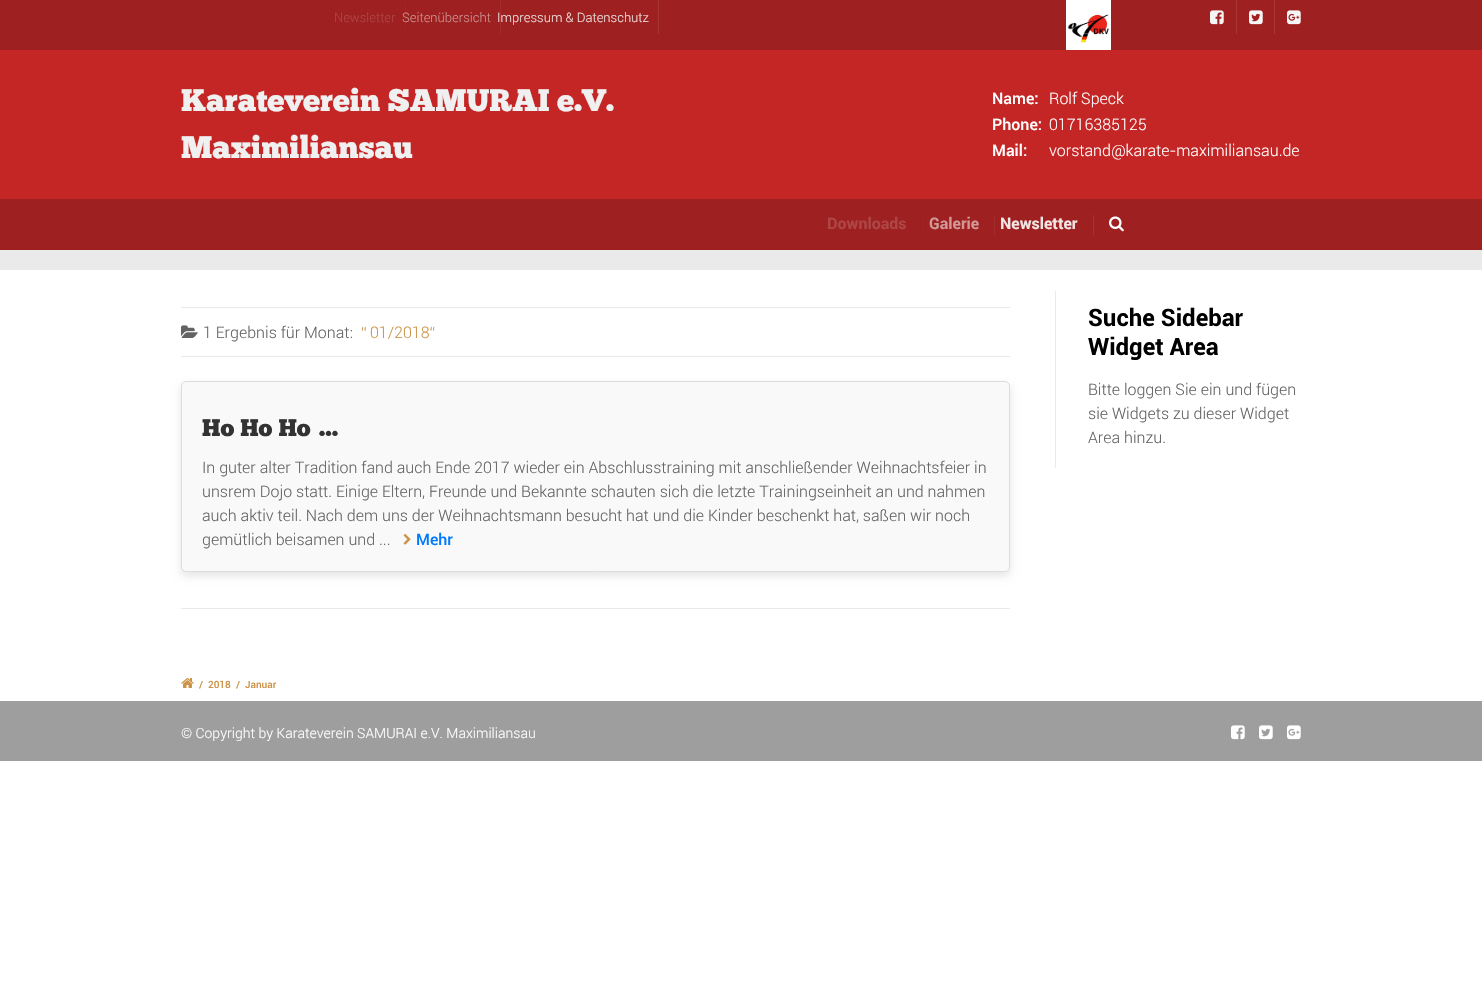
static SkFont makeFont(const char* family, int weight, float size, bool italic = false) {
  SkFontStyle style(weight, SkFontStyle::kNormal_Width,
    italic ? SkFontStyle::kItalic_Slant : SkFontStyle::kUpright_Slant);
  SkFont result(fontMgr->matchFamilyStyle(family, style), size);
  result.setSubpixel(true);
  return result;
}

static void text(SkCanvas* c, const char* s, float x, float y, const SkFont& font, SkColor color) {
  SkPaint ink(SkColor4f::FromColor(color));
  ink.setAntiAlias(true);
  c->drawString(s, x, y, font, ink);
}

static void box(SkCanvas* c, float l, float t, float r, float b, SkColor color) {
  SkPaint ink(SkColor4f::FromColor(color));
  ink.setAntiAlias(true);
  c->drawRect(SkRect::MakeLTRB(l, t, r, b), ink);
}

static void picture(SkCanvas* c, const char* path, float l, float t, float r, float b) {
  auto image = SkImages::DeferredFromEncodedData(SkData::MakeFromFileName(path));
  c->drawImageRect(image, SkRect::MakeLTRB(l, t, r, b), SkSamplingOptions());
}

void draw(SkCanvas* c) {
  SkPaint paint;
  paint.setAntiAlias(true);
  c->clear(0xffffffff);
  box(c, 0, 0, 1482, 50, 0xff9e2020);
  box(c, 405, 0, 406, 34, 0xffa02424);
  SkFont face1 = makeFont("Roboto", 300, 13);
  text(c, "Newsletter", 334, 22, face1, 0xffae4646);
  box(c, 500, 0, 501, 34, 0xffa32c2c);
  text(c, "Seitenübersicht", 402, 22, face1, 0xffcc9191);
  box(c, 658, 0, 659, 34, 0xffa73434);
  text(c, "Impressum & Datenschutz", 497, 22, face1, 0xffebdddd);
  picture(c, "img_01.png", 1066, 0, 1111, 50);
  box(c, 1236, 0, 1237, 34, 0xffa83636);
  picture(c, "img_02.png", 1210, 10, 1224, 25);
  box(c, 1274, 0, 1275, 34, 0xffa83636);
  picture(c, "img_03.png", 1249, 10, 1263, 25);
  picture(c, "img_04.png", 1287, 10, 1301, 25);
  box(c, 0, 50, 1482, 199, 0xffc42525);
  SkFont face2 = makeFont("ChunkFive", 400, 31);
  text(c, "Karateverein SAMURAI e.V.", 181, 111, face2, 0xfff0f0f0);
  text(c, "Maximiliansau", 181, 158, face2, 0xfff0f0f0);
  SkFont face3 = makeFont("Roboto", 500, 16);
  text(c, "Name:", 992, 104, face3, 0xffffffff);
  SkFont face4 = makeFont("Roboto", 300, 16);
  text(c, "Rolf Speck", 1049, 104, face4, 0xffffffff);
  text(c, "Phone:", 992, 130, face3, 0xffffffff);
  text(c, "01716385125", 1049, 130, face4, 0xffffffff);
  text(c, "Mail:", 992, 156, face3, 0xffffffff);
  text(c, "vorstand@karate-maximiliansau.de", 1049, 156, face4, 0xffffffff);
  box(c, 0, 199, 1482, 250, 0xff9e2020);
  SkFont face5 = makeFont("Roboto", 700, 16);
  text(c, "Downloads", 827, 229, face5, 0xffae4646);
  box(c, 922, 215, 923, 235, 0xffa02424);
  text(c, "Galerie", 929, 229, face5, 0xffd29797);
  box(c, 994, 215, 995, 235, 0xffa32c2c);
  text(c, "Newsletter", 1000, 229, face5, 0xfff4e5e5);
  box(c, 1093, 215, 1094, 235, 0xffa73434);
  picture(c, "img_05.png", 1109, 216, 1124, 232);
  box(c, 0, 250, 1482, 270, 0xffeaeaea);
  box(c, 181, 307, 1010, 308, 0xffeaeaea);
  box(c, 181, 356, 1010, 357, 0xffeaeaea);
  picture(c, "img_06.png", 181, 325, 198, 338);
  text(c, "1 Ergebnis für Monat:", 203, 338, face4, 0xff636363);
  text(c, "“", 361, 338, face4, 0xffcc9246);
  text(c, "01/2018“", 370, 338, face4, 0xffcc9246);
  paint.setColor(0x1a000000);
  paint.setMaskFilter(SkMaskFilter::MakeBlur(kNormal_SkBlurStyle, 4));
  c->drawRoundRect(SkRect::MakeLTRB(181, 385, 1010, 576), 5, 5, paint);
  paint.setMaskFilter(nullptr);
  paint.setColor(0xfff9f9f9);
  c->drawRoundRect(SkRect::MakeLTRB(181.5f, 381.5f, 1009.5f, 571.5f), 4.5f, 4.5f, paint);
  paint.setStyle(SkPaint::kStroke_Style);
  paint.setStrokeWidth(1);
  paint.setColor(0xffdddddd);
  c->drawRoundRect(SkRect::MakeLTRB(181.5f, 381.5f, 1009.5f, 571.5f), 4.5f, 4.5f, paint);
  SkFont face6 = makeFont("ChunkFive", 400, 24);
  text(c, "Ho Ho Ho …", 202, 436, face6, 0xff333333);
  text(c, "In guter alter Tradition fand auch Ende 2017 wieder ein Abschlusstraining mit anschließender Weihnachtsfeier in", 202, 473, face4, 0xff636363);
  text(c, "unsrem Dojo statt. Einige Eltern, Freunde und Bekannte schauten sich die letzte Trainingseinheit an und nahmen", 202, 497, face4, 0xff636363);
  text(c, "auch aktiv teil. Nach dem uns der Weihnachtsmann besucht hat und die Kinder beschenkt hat, saßen wir noch", 202, 521, face4, 0xff636363);
  text(c, "gemütlich beisamen und ...", 202, 545, face4, 0xff636363);
  picture(c, "img_07.png", 403, 533, 411, 545);
  text(c, "Mehr", 416, 545, face3, 0xff007bff);
  box(c, 181, 608, 1010, 609, 0xffeaeaea);
  box(c, 1055, 291, 1056, 468, 0xffeaeaea);
  SkFont face7 = makeFont("Roboto", 700, 24);
  text(c, "Suche Sidebar", 1088, 326, face7, 0xff000000);
  text(c, "Widget Area", 1088, 355, face7, 0xff000000);
  text(c, "Bitte loggen Sie ein und fügen", 1088, 395, face4, 0xff636363);
  text(c, "sie Widgets zu dieser Widget", 1088, 419, face4, 0xff636363);
  text(c, "Area hinzu.", 1088, 443, face4, 0xff636363);
  picture(c, "img_08.png", 181, 678, 194, 688);
  SkFont face8 = makeFont("Roboto", 500, 10);
  text(c, "/", 199, 688, face8, 0xffcc9246);
  text(c, "2018", 208, 688, face8, 0xffcc9246);
  text(c, "/", 236, 688, face8, 0xffcc9246);
  text(c, "Januar", 245, 688, face8, 0xffcc9246);
  box(c, 0, 701, 1482, 761, 0xff9e9e9e);
  SkFont face9 = makeFont("Roboto", 300, 14);
  text(c, "© Copyright by Karateverein SAMURAI e.V. Maximiliansau", 181, 738, face9, 0xffffffff);
  picture(c, "img_09.png", 1231, 725, 1245, 740);
  picture(c, "img_10.png", 1259, 725, 1273, 740);
  picture(c, "img_11.png", 1287, 725, 1301, 740);
}
